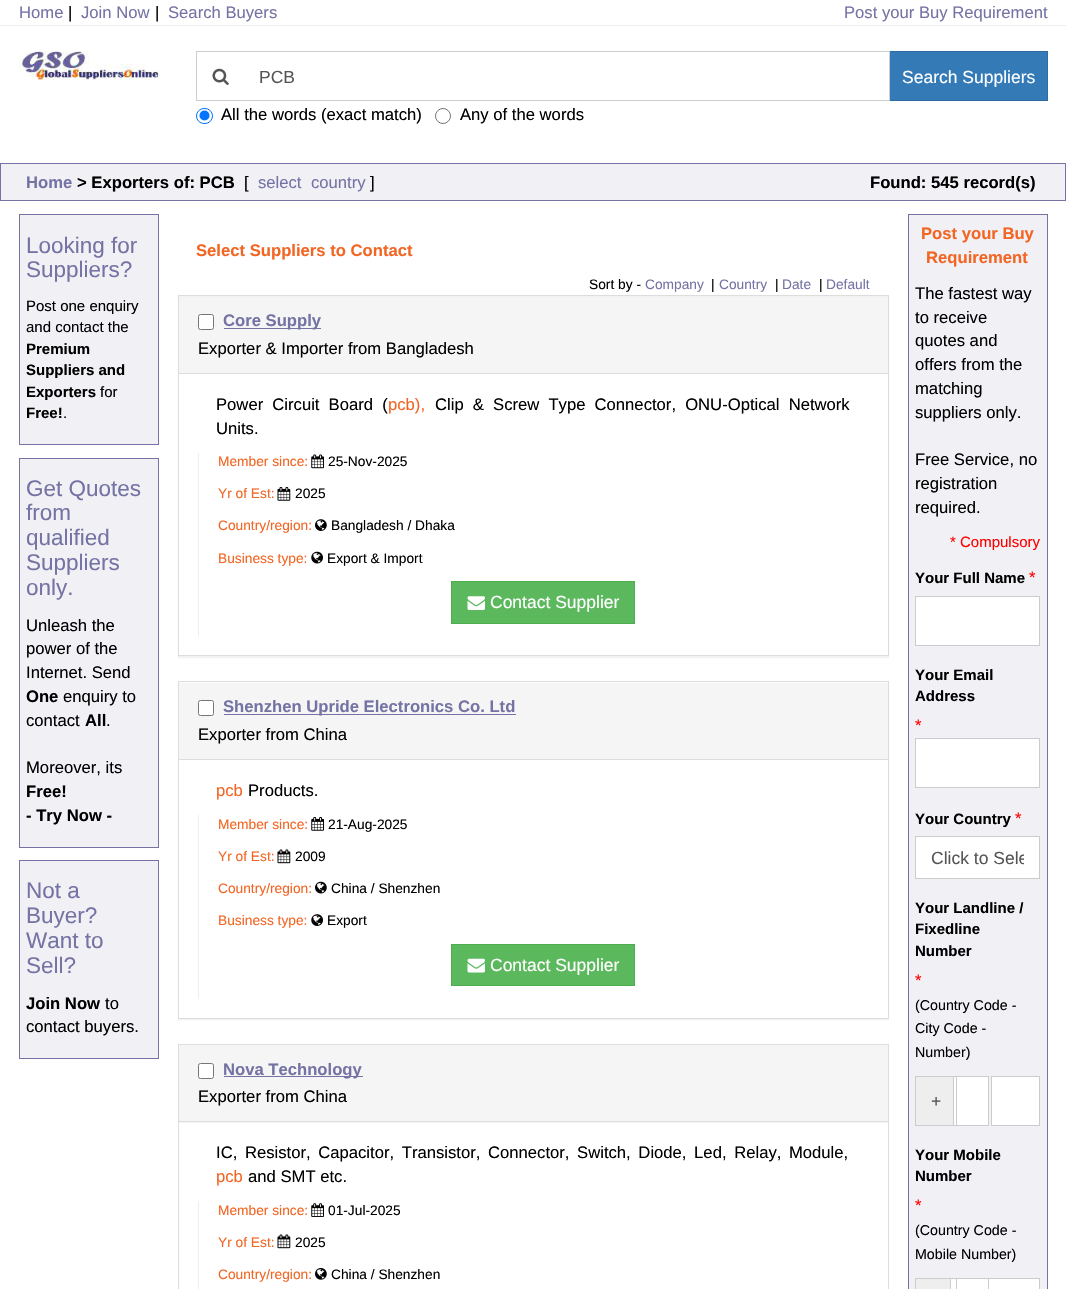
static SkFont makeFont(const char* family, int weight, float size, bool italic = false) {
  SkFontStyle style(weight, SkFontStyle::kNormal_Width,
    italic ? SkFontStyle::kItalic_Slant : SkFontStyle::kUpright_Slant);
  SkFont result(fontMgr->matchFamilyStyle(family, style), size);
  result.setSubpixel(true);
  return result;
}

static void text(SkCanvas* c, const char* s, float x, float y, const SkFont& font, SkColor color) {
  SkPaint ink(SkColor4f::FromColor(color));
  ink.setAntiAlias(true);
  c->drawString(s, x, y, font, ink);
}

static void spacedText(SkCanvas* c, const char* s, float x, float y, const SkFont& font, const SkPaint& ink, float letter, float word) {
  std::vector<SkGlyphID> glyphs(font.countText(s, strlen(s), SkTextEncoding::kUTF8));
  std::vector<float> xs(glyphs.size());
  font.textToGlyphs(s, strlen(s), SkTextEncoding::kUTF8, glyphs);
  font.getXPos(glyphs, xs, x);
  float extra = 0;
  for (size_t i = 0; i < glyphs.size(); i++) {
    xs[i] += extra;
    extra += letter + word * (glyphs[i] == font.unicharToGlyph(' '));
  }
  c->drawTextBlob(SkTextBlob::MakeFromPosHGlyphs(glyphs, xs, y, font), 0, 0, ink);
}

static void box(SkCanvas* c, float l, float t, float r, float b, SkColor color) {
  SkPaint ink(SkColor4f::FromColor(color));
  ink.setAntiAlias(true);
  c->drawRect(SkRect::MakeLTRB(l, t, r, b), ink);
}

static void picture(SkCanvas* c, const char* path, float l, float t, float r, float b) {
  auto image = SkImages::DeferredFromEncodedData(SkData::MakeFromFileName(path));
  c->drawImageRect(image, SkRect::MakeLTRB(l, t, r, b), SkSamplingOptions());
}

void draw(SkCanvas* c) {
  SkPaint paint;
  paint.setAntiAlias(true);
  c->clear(0xffffffff);
  SkFont face1 = makeFont("Liberation Sans", 400, 16.65f);
  text(c, "Home", 19, 18, face1, 0xff7573a4);
  text(c, "|", 68, 18, face1, 0xff000000);
  text(c, "Join Now", 81, 18, face1, 0xff7573a4);
  text(c, "|", 155, 18, face1, 0xff000000);
  text(c, "Search Buyers", 168, 18, face1, 0xff7573a4);
  text(c, "Post your Buy Requirement", 844, 18, face1, 0xff7573a4);
  box(c, 0, 25, 1066, 26, 0xffeeeeee);
  picture(c, "img_01.png", 19, 51, 159, 80);
  box(c, 196, 51, 244, 52, 0xffcccccc);
  box(c, 196, 100, 244, 101, 0xffcccccc);
  box(c, 196, 51, 197, 101, 0xffcccccc);
  picture(c, "img_02.png", 212, 68, 229, 85);
  paint.setColor(0xff337ab7);
  c->drawRect(SkRect::MakeLTRB(889.5f, 51.5f, 1047.5f, 100.5f), paint);
  paint.setStyle(SkPaint::kStroke_Style);
  paint.setStrokeWidth(1);
  paint.setColor(0xff2e6da4);
  c->drawRect(SkRect::MakeLTRB(889.5f, 51.5f, 1047.5f, 100.5f), paint);
  box(c, 244, 51, 890, 52, 0xffcccccc);
  box(c, 889, 51, 890, 101, 0xffcccccc);
  box(c, 244, 100, 890, 101, 0xffcccccc);
  SkFont face2 = makeFont("Liberation Sans", 400, 17.5f);
  text(c, "PCB", 259, 83, face2, 0xff555555);
  text(c, "Search Suppliers", 902, 83, face2, 0xffffffff);
  paint.setColor(0xff0075ff);
  c->drawRoundRect(SkRect::MakeLTRB(196.5f, 108.5f, 212.5f, 123.5f), 7.5f, 7.5f, paint);
  paint.setStyle(SkPaint::kFill_Style);
  c->drawCircle(204.5f, 115.5f, 5, paint);
  text(c, "All the words (exact match)", 221, 120, face1, 0xff000000);
  paint.setStyle(SkPaint::kStroke_Style);
  paint.setColor(0xff767676);
  c->drawCircle(443, 116, 7.5f, paint);
  text(c, "Any of the words", 460, 120, face1, 0xff000000);
  paint.setStyle(SkPaint::kFill_Style);
  paint.setColor(0xfff1f0f5);
  c->drawRect(SkRect::MakeLTRB(0.5f, 163.5f, 1065.5f, 200.5f), paint);
  paint.setStyle(SkPaint::kStroke_Style);
  paint.setColor(0xff7573a4);
  c->drawRect(SkRect::MakeLTRB(0.5f, 163.5f, 1065.5f, 200.5f), paint);
  SkFont face3 = makeFont("Liberation Sans", 700, 16.65f);
  text(c, "Home", 26, 188, face3, 0xff7573a4);
  text(c, "> Exporters of: PCB", 77, 188, face3, 0xff000000);
  text(c, "[", 244, 188, face1, 0xff000000);
  text(c, "select", 258, 188, face1, 0xff7573a4);
  text(c, "country", 311, 188, face1, 0xff7573a4);
  text(c, "]", 370, 188, face1, 0xff000000);
  text(c, "Found: 545 record(s)", 870, 188, face3, 0xff000000);
  paint.setStyle(SkPaint::kFill_Style);
  paint.setColor(0xfff1f0f5);
  c->drawRect(SkRect::MakeLTRB(19.5f, 214.5f, 158.5f, 444.5f), paint);
  paint.setStyle(SkPaint::kStroke_Style);
  paint.setColor(0xff7573a4);
  c->drawRect(SkRect::MakeLTRB(19.5f, 214.5f, 158.5f, 444.5f), paint);
  SkFont face4 = makeFont("Liberation Sans", 400, 22.5f);
  text(c, "Looking for", 26, 253, face4, 0xff7573a4);
  text(c, "Suppliers?", 26, 277, face4, 0xff7573a4);
  SkFont face5 = makeFont("Liberation Sans", 400, 15);
  text(c, "Post one enquiry", 26, 311, face5, 0xff000000);
  text(c, "and contact the", 26, 332, face5, 0xff000000);
  SkFont face6 = makeFont("Liberation Sans", 700, 15);
  text(c, "Premium", 26, 354, face6, 0xff000000);
  text(c, "Suppliers and", 26, 375, face6, 0xff000000);
  text(c, "Exporters", 26, 397, face6, 0xff000000);
  text(c, "for", 100, 397, face5, 0xff000000);
  text(c, "Free!", 26, 418, face6, 0xff000000);
  text(c, ".", 63, 418, face5, 0xff000000);
  paint.setStyle(SkPaint::kFill_Style);
  paint.setColor(0xfff1f0f5);
  c->drawRect(SkRect::MakeLTRB(19.5f, 458.5f, 158.5f, 847.5f), paint);
  paint.setStyle(SkPaint::kStroke_Style);
  paint.setColor(0xff7573a4);
  c->drawRect(SkRect::MakeLTRB(19.5f, 458.5f, 158.5f, 847.5f), paint);
  text(c, "Get Quotes", 26, 496, face4, 0xff7573a4);
  text(c, "from", 26, 520, face4, 0xff7573a4);
  text(c, "qualified", 26, 545, face4, 0xff7573a4);
  text(c, "Suppliers", 26, 570, face4, 0xff7573a4);
  text(c, "only.", 26, 595, face4, 0xff7573a4);
  text(c, "Unleash the", 26, 631, face1, 0xff000000);
  text(c, "power of the", 26, 654, face1, 0xff000000);
  text(c, "Internet. Send", 26, 678, face1, 0xff000000);
  text(c, "One", 26, 702, face3, 0xff000000);
  text(c, "enquiry to", 63, 702, face1, 0xff000000);
  text(c, "contact", 26, 726, face1, 0xff000000);
  text(c, "All", 85, 726, face3, 0xff000000);
  text(c, ".", 106, 726, face1, 0xff000000);
  text(c, "Moreover, its", 26, 773, face1, 0xff000000);
  text(c, "Free!", 26, 797, face3, 0xff000000);
  text(c, "- Try Now -", 26, 821, face3, 0xff000000);
  paint.setStyle(SkPaint::kFill_Style);
  paint.setColor(0xfff1f0f5);
  c->drawRect(SkRect::MakeLTRB(19.5f, 860.5f, 158.5f, 1058.5f), paint);
  paint.setStyle(SkPaint::kStroke_Style);
  paint.setColor(0xff7573a4);
  c->drawRect(SkRect::MakeLTRB(19.5f, 860.5f, 158.5f, 1058.5f), paint);
  text(c, "Not a", 26, 898, face4, 0xff7573a4);
  text(c, "Buyer?", 26, 923, face4, 0xff7573a4);
  text(c, "Want to", 26, 948, face4, 0xff7573a4);
  text(c, "Sell?", 26, 973, face4, 0xff7573a4);
  text(c, "Join Now", 26, 1009, face3, 0xff000000);
  text(c, "to", 105, 1009, face1, 0xff000000);
  text(c, "contact buyers.", 26, 1032, face1, 0xff000000);
  text(c, "Select Suppliers to Contact", 196, 256, face3, 0xfff26522);
  SkFont face7 = makeFont("Liberation Sans", 400, 13.75f);
  text(c, "Sort by -", 589, 289, face7, 0xff000000);
  text(c, "Company", 645, 289, face7, 0xff7573a4);
  text(c, "|", 711, 289, face7, 0xff000000);
  text(c, "Country", 719, 289, face7, 0xff7573a4);
  text(c, "|", 775, 289, face7, 0xff000000);
  text(c, "Date", 782, 289, face7, 0xff7573a4);
  text(c, "|", 819, 289, face7, 0xff000000);
  text(c, "Default", 826, 289, face7, 0xff7573a4);
  paint.setStyle(SkPaint::kFill_Style);
  paint.setColor(0x0d000000);
  paint.setMaskFilter(SkMaskFilter::MakeBlur(kNormal_SkBlurStyle, 0.5f));
  c->drawRect(SkRect::MakeLTRB(178, 296, 889, 658), paint);
  paint.setMaskFilter(nullptr);
  box(c, 179, 374, 888, 655, 0xffffffff);
  paint.setStyle(SkPaint::kStroke_Style);
  paint.setColor(0xffdddddd);
  c->drawRect(SkRect::MakeLTRB(178.5f, 295.5f, 888.5f, 655.5f), paint);
  box(c, 179, 297, 888, 373, 0xfff5f5f5);
  box(c, 179, 373, 888, 374, 0xffdddddd);
  paint.setStyle(SkPaint::kFill_Style);
  paint.setColor(0xffffffff);
  c->drawRoundRect(SkRect::MakeLTRB(198.5f, 314.5f, 213.5f, 329.5f), 2, 2, paint);
  paint.setStyle(SkPaint::kStroke_Style);
  paint.setColor(0xff767676);
  c->drawRoundRect(SkRect::MakeLTRB(198.5f, 314.5f, 213.5f, 329.5f), 2, 2, paint);
  box(c, 224, 328, 321, 329, 0xff7573a4);
  text(c, "Core Supply", 223, 326, face3, 0xff7573a4);
  text(c, "Exporter & Importer from Bangladesh", 198, 354, face1, 0xff000000);
  paint.setStyle(SkPaint::kFill_Style);
  paint.setColor(0xff000000);
  spacedText(c, "Power Circuit Board (", 216, 410, face1, paint, 0, 4.5f);
  text(c, "pcb),", 388, 410, face1, 0xfff26522);
  spacedText(c, "Clip & Screw Type Connector, ONU-Optical Network", 435, 410, face1, paint, 0, 4.5f);
  text(c, "Units.", 216, 434, face1, 0xff000000);
  box(c, 198, 453, 199, 636, 0xffeeeeee);
  text(c, "Member since:", 218, 466, face7, 0xfff26522);
  picture(c, "img_03.png", 311, 454, 324, 469);
  text(c, "25-Nov-2025", 328, 466, face7, 0xff000000);
  text(c, "Yr of Est:", 218, 498, face7, 0xfff26522);
  picture(c, "img_04.png", 277, 486, 291, 501);
  text(c, "2025", 295, 498, face7, 0xff000000);
  text(c, "Country/region:", 218, 530, face7, 0xfff26522);
  picture(c, "img_05.png", 315, 519, 327, 531);
  text(c, "Bangladesh / Dhaka", 331, 530, face7, 0xff000000);
  text(c, "Business type:", 218, 563, face7, 0xfff26522);
  picture(c, "img_06.png", 311, 551, 323, 564);
  text(c, "Export & Import", 327, 563, face7, 0xff000000);
  paint.setColor(0xff5cb85c);
  c->drawRect(SkRect::MakeLTRB(451.5f, 581.5f, 634.5f, 623.5f), paint);
  paint.setStyle(SkPaint::kStroke_Style);
  paint.setColor(0xff4cae4c);
  c->drawRect(SkRect::MakeLTRB(451.5f, 581.5f, 634.5f, 623.5f), paint);
  picture(c, "img_07.png", 467, 596, 485, 610);
  text(c, "Contact Supplier", 490, 608, face2, 0xffffffff);
  paint.setStyle(SkPaint::kFill_Style);
  paint.setColor(0x0d000000);
  paint.setMaskFilter(SkMaskFilter::MakeBlur(kNormal_SkBlurStyle, 0.5f));
  c->drawRect(SkRect::MakeLTRB(178, 683, 889, 1020), paint);
  paint.setMaskFilter(nullptr);
  box(c, 179, 683, 888, 1018, 0xffffffff);
  paint.setStyle(SkPaint::kStroke_Style);
  paint.setColor(0xffdddddd);
  c->drawRect(SkRect::MakeLTRB(178.5f, 681.5f, 888.5f, 1018.5f), paint);
  box(c, 179, 683, 888, 759, 0xfff5f5f5);
  box(c, 179, 759, 888, 760, 0xffdddddd);
  paint.setStyle(SkPaint::kFill_Style);
  paint.setColor(0xffffffff);
  c->drawRoundRect(SkRect::MakeLTRB(198.5f, 700.5f, 213.5f, 715.5f), 2, 2, paint);
  paint.setStyle(SkPaint::kStroke_Style);
  paint.setColor(0xff767676);
  c->drawRoundRect(SkRect::MakeLTRB(198.5f, 700.5f, 213.5f, 715.5f), 2, 2, paint);
  box(c, 224, 714, 516, 715, 0xff7573a4);
  text(c, "Shenzhen Upride Electronics Co. Ltd", 223, 712, face3, 0xff7573a4);
  text(c, "Exporter from China", 198, 740, face1, 0xff000000);
  text(c, "pcb", 216, 796, face1, 0xfff26522);
  text(c, "Products.", 248, 796, face1, 0xff000000);
  box(c, 198, 815, 199, 999, 0xffeeeeee);
  text(c, "Member since:", 218, 829, face7, 0xfff26522);
  picture(c, "img_08.png", 311, 816, 324, 831);
  text(c, "21-Aug-2025", 328, 829, face7, 0xff000000);
  text(c, "Yr of Est:", 218, 861, face7, 0xfff26522);
  picture(c, "img_09.png", 277, 849, 291, 864);
  text(c, "2009", 295, 861, face7, 0xff000000);
  text(c, "Country/region:", 218, 893, face7, 0xfff26522);
  picture(c, "img_10.png", 315, 881, 327, 894);
  text(c, "China / Shenzhen", 331, 893, face7, 0xff000000);
  text(c, "Business type:", 218, 925, face7, 0xfff26522);
  picture(c, "img_11.png", 311, 914, 323, 926);
  text(c, "Export", 327, 925, face7, 0xff000000);
  paint.setStyle(SkPaint::kFill_Style);
  paint.setColor(0xff5cb85c);
  c->drawRect(SkRect::MakeLTRB(451.5f, 944.5f, 634.5f, 985.5f), paint);
  paint.setStyle(SkPaint::kStroke_Style);
  paint.setColor(0xff4cae4c);
  c->drawRect(SkRect::MakeLTRB(451.5f, 944.5f, 634.5f, 985.5f), paint);
  picture(c, "img_12.png", 467, 958, 485, 973);
  text(c, "Contact Supplier", 490, 971, face2, 0xffffffff);
  paint.setColor(0xffdddddd);
  c->drawRect(SkRect::MakeLTRB(178.5f, 1044.5f, 888.5f, 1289.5f), paint);
  box(c, 179, 1045, 888, 1123, 0xfff5f5f5);
  box(c, 179, 1121, 888, 1122, 0xffdddddd);
  paint.setStyle(SkPaint::kFill_Style);
  paint.setColor(0xffffffff);
  c->drawRoundRect(SkRect::MakeLTRB(198.5f, 1063.5f, 213.5f, 1078.5f), 2, 2, paint);
  paint.setStyle(SkPaint::kStroke_Style);
  paint.setColor(0xff767676);
  c->drawRoundRect(SkRect::MakeLTRB(198.5f, 1063.5f, 213.5f, 1078.5f), 2, 2, paint);
  box(c, 224, 1076, 363, 1077, 0xff7573a4);
  text(c, "Nova Technology", 223, 1075, face3, 0xff7573a4);
  text(c, "Exporter from China", 198, 1102, face1, 0xff000000);
  paint.setStyle(SkPaint::kFill_Style);
  paint.setColor(0xff000000);
  spacedText(c, "IC, Resistor, Capacitor, Transistor, Connector, Switch, Diode, Led, Relay, Module,", 216, 1158, face1, paint, 0, 3);
  text(c, "pcb", 216, 1182, face1, 0xfff26522);
  text(c, "and SMT etc.", 248, 1182, face1, 0xff000000);
  box(c, 198, 1201, 199, 1289, 0xffeeeeee);
  text(c, "Member since:", 218, 1215, face7, 0xfff26522);
  picture(c, "img_13.png", 311, 1203, 324, 1217);
  text(c, "01-Jul-2025", 328, 1215, face7, 0xff000000);
  text(c, "Yr of Est:", 218, 1247, face7, 0xfff26522);
  picture(c, "img_09.png", 277, 1234, 291, 1249);
  text(c, "2025", 295, 1247, face7, 0xff000000);
  text(c, "Country/region:", 218, 1279, face7, 0xfff26522);
  picture(c, "img_14.png", 315, 1268, 327, 1280);
  text(c, "China / Shenzhen", 331, 1279, face7, 0xff000000);
  paint.setColor(0xfff1f0f5);
  c->drawRect(SkRect::MakeLTRB(908.5f, 214.5f, 1047.5f, 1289.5f), paint);
  paint.setStyle(SkPaint::kStroke_Style);
  paint.setColor(0xff7573a4);
  c->drawRect(SkRect::MakeLTRB(908.5f, 214.5f, 1047.5f, 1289.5f), paint);
  text(c, "Post your Buy", 921, 239, face3, 0xfff26522);
  text(c, "Requirement", 926, 263, face3, 0xfff26522);
  text(c, "The fastest way", 915, 299, face1, 0xff000000);
  text(c, "to receive", 915, 323, face1, 0xff000000);
  text(c, "quotes and", 915, 346, face1, 0xff000000);
  text(c, "offers from the", 915, 370, face1, 0xff000000);
  text(c, "matching", 915, 394, face1, 0xff000000);
  text(c, "suppliers only.", 915, 418, face1, 0xff000000);
  text(c, "Free Service, no", 915, 465, face1, 0xff000000);
  text(c, "registration", 915, 489, face1, 0xff000000);
  text(c, "required.", 915, 513, face1, 0xff000000);
  text(c, "* Compulsory", 950, 547, face5, 0xffff0000);
  text(c, "Your Full Name", 915, 583, face6, 0xff000000);
  text(c, "*", 1029, 583, face1, 0xffff0000);
  paint.setStyle(SkPaint::kFill_Style);
  paint.setColor(0xffffffff);
  c->drawRect(SkRect::MakeLTRB(915.5f, 596.5f, 1039.5f, 645.5f), paint);
  paint.setStyle(SkPaint::kStroke_Style);
  paint.setColor(0xffcccccc);
  c->drawRect(SkRect::MakeLTRB(915.5f, 596.5f, 1039.5f, 645.5f), paint);
  text(c, "Your Email", 915, 680, face6, 0xff000000);
  text(c, "Address", 915, 701, face6, 0xff000000);
  text(c, "*", 915, 731, face1, 0xffff0000);
  paint.setStyle(SkPaint::kFill_Style);
  paint.setColor(0xffffffff);
  c->drawRect(SkRect::MakeLTRB(915.5f, 738.5f, 1039.5f, 787.5f), paint);
  paint.setStyle(SkPaint::kStroke_Style);
  paint.setColor(0xffcccccc);
  c->drawRect(SkRect::MakeLTRB(915.5f, 738.5f, 1039.5f, 787.5f), paint);
  text(c, "Your Country", 915, 824, face6, 0xff000000);
  text(c, "*", 1015, 824, face1, 0xffff0000);
  paint.setStyle(SkPaint::kFill_Style);
  paint.setColor(0xffffffff);
  c->drawRect(SkRect::MakeLTRB(915.5f, 836.5f, 1039.5f, 878.5f), paint);
  paint.setStyle(SkPaint::kStroke_Style);
  paint.setColor(0xffcccccc);
  c->drawRect(SkRect::MakeLTRB(915.5f, 836.5f, 1039.5f, 878.5f), paint);
  c->save();
  c->clipRect(SkRect::MakeLTRB(931, 845, 1024, 870));
  text(c, "Click to Sele", 931, 864, face2, 0xff555555);
  c->restore();
  text(c, "Your Landline /", 915, 913, face6, 0xff000000);
  text(c, "Fixedline", 915, 934, face6, 0xff000000);
  text(c, "Number", 915, 956, face6, 0xff000000);
  text(c, "*", 915, 986, face1, 0xffff0000);
  SkFont face8 = makeFont("Liberation Sans", 400, 14.25f);
  text(c, "(Country Code -", 915, 1010, face8, 0xff000000);
  text(c, "City Code -", 915, 1033, face8, 0xff000000);
  text(c, "Number)", 915, 1057, face8, 0xff000000);
  box(c, 916, 1077, 953, 1125, 0xffeeeeee);
  box(c, 915, 1076, 956, 1077, 0xffcccccc);
  box(c, 915, 1125, 956, 1126, 0xffcccccc);
  box(c, 915, 1076, 916, 1126, 0xffcccccc);
  text(c, "+", 931, 1107, face2, 0xff555555);
  box(c, 954, 1077, 956, 1125, 0xffffffff);
  c->drawRect(SkRect::MakeLTRB(953.5f, 1076.5f, 988.5f, 1125.5f), paint);
  paint.setStyle(SkPaint::kFill_Style);
  paint.setColor(0xffffffff);
  c->drawRect(SkRect::MakeLTRB(956.5f, 1076.5f, 988.5f, 1125.5f), paint);
  paint.setStyle(SkPaint::kStroke_Style);
  paint.setColor(0xffcccccc);
  c->drawRect(SkRect::MakeLTRB(956.5f, 1076.5f, 988.5f, 1125.5f), paint);
  paint.setStyle(SkPaint::kFill_Style);
  paint.setColor(0xffffffff);
  c->drawRect(SkRect::MakeLTRB(991.5f, 1076.5f, 1039.5f, 1125.5f), paint);
  paint.setStyle(SkPaint::kStroke_Style);
  paint.setColor(0xffcccccc);
  c->drawRect(SkRect::MakeLTRB(991.5f, 1076.5f, 1039.5f, 1125.5f), paint);
  text(c, "Your Mobile", 915, 1160, face6, 0xff000000);
  text(c, "Number", 915, 1181, face6, 0xff000000);
  text(c, "*", 915, 1211, face1, 0xffff0000);
  text(c, "(Country Code -", 915, 1235, face8, 0xff000000);
  text(c, "Mobile Number)", 915, 1259, face8, 0xff000000);
  box(c, 916, 1279, 950, 1289, 0xffeeeeee);
  box(c, 915, 1278, 956, 1279, 0xffcccccc);
  box(c, 915, 1278, 916, 1289, 0xffcccccc);
  paint.setStyle(SkPaint::kFill_Style);
  paint.setColor(0xffffffff);
  c->drawRect(SkRect::MakeLTRB(950.5f, 1278.5f, 1039.5f, 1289.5f), paint);
  paint.setStyle(SkPaint::kStroke_Style);
  paint.setColor(0xffcccccc);
  c->drawRect(SkRect::MakeLTRB(950.5f, 1278.5f, 1039.5f, 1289.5f), paint);
  c->drawRect(SkRect::MakeLTRB(956.5f, 1278.5f, 988.5f, 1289.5f), paint);
}
